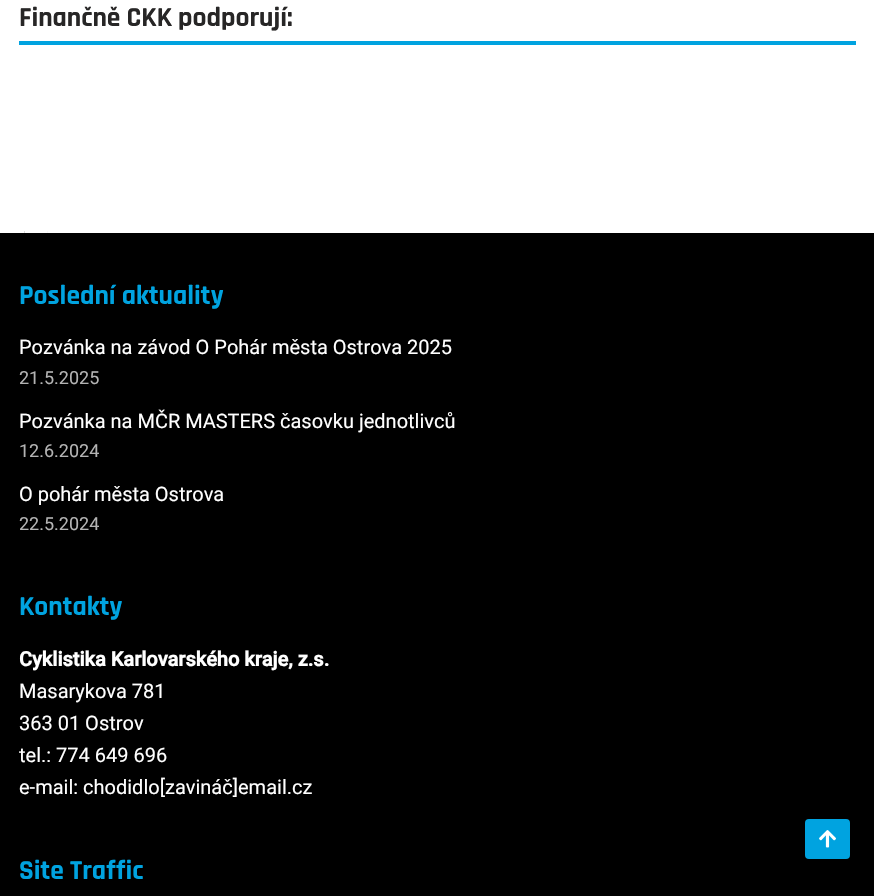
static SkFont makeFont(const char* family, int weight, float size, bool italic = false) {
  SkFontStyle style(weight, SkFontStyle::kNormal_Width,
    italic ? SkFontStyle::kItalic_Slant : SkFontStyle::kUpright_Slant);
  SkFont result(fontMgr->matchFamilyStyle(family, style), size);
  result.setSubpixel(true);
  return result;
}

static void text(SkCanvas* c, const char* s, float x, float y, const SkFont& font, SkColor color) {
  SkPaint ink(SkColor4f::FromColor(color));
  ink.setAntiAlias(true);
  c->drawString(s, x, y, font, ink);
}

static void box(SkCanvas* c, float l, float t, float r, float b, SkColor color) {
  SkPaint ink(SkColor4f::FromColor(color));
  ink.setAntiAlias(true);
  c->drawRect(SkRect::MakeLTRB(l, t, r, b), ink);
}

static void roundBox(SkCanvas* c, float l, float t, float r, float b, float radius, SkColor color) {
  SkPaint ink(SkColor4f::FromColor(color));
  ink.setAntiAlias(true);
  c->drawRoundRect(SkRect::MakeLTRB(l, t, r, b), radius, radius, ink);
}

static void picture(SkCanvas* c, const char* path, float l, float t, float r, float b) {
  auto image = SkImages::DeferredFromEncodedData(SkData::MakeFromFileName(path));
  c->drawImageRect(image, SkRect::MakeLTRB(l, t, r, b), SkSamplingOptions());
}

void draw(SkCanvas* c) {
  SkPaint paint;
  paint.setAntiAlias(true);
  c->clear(0xffffffff);
  box(c, 19, 41, 856, 45, 0xff00a3e0);
  SkFont face1 = makeFont("Rajdhani", 700, 27.5f);
  text(c, "Finančně CKK podporují:", 19, 26, face1, 0xff272626);
  picture(c, "img_01.png", 24, 231, 48, 233);
  box(c, 0, 233, 874, 896, 0xff000000);
  text(c, "Poslední aktuality", 19, 304, face1, 0xff00a3e0);
  SkFont face2 = makeFont("Roboto", 400, 20);
  text(c, "Pozvánka na závod O Pohár města Ostrova 2025", 19, 354, face2, 0xffffffff);
  SkFont face3 = makeFont("Roboto", 400, 18);
  text(c, "21.5.2025", 19, 384, face3, 0xffb3b3b3);
  text(c, "Pozvánka na MČR MASTERS časovku jednotlivců", 19, 428, face2, 0xffffffff);
  text(c, "12.6.2024", 19, 457, face3, 0xffb3b3b3);
  text(c, "O pohár města Ostrova", 19, 501, face2, 0xffffffff);
  text(c, "22.5.2024", 19, 530, face3, 0xffb3b3b3);
  text(c, "Kontakty", 19, 615, face1, 0xff00a3e0);
  SkFont face4 = makeFont("Roboto", 700, 20);
  text(c, "Cyklistika Karlovarského kraje, z.s.", 19, 666, face4, 0xffffffff);
  text(c, "Masarykova 781", 19, 698, face2, 0xffffffff);
  text(c, "363 01 Ostrov", 19, 730, face2, 0xffffffff);
  text(c, "tel.: 774 649 696", 19, 762, face2, 0xffffffff);
  text(c, "e-mail: chodidlo[zavináč]email.cz", 19, 794, face2, 0xffffffff);
  text(c, "Site Traffic", 19, 879, face1, 0xff00a3e0);
  roundBox(c, 805, 819, 850, 859, 4, 0xff00a3e0);
  picture(c, "img_02.png", 819, 830, 836, 848);
}
